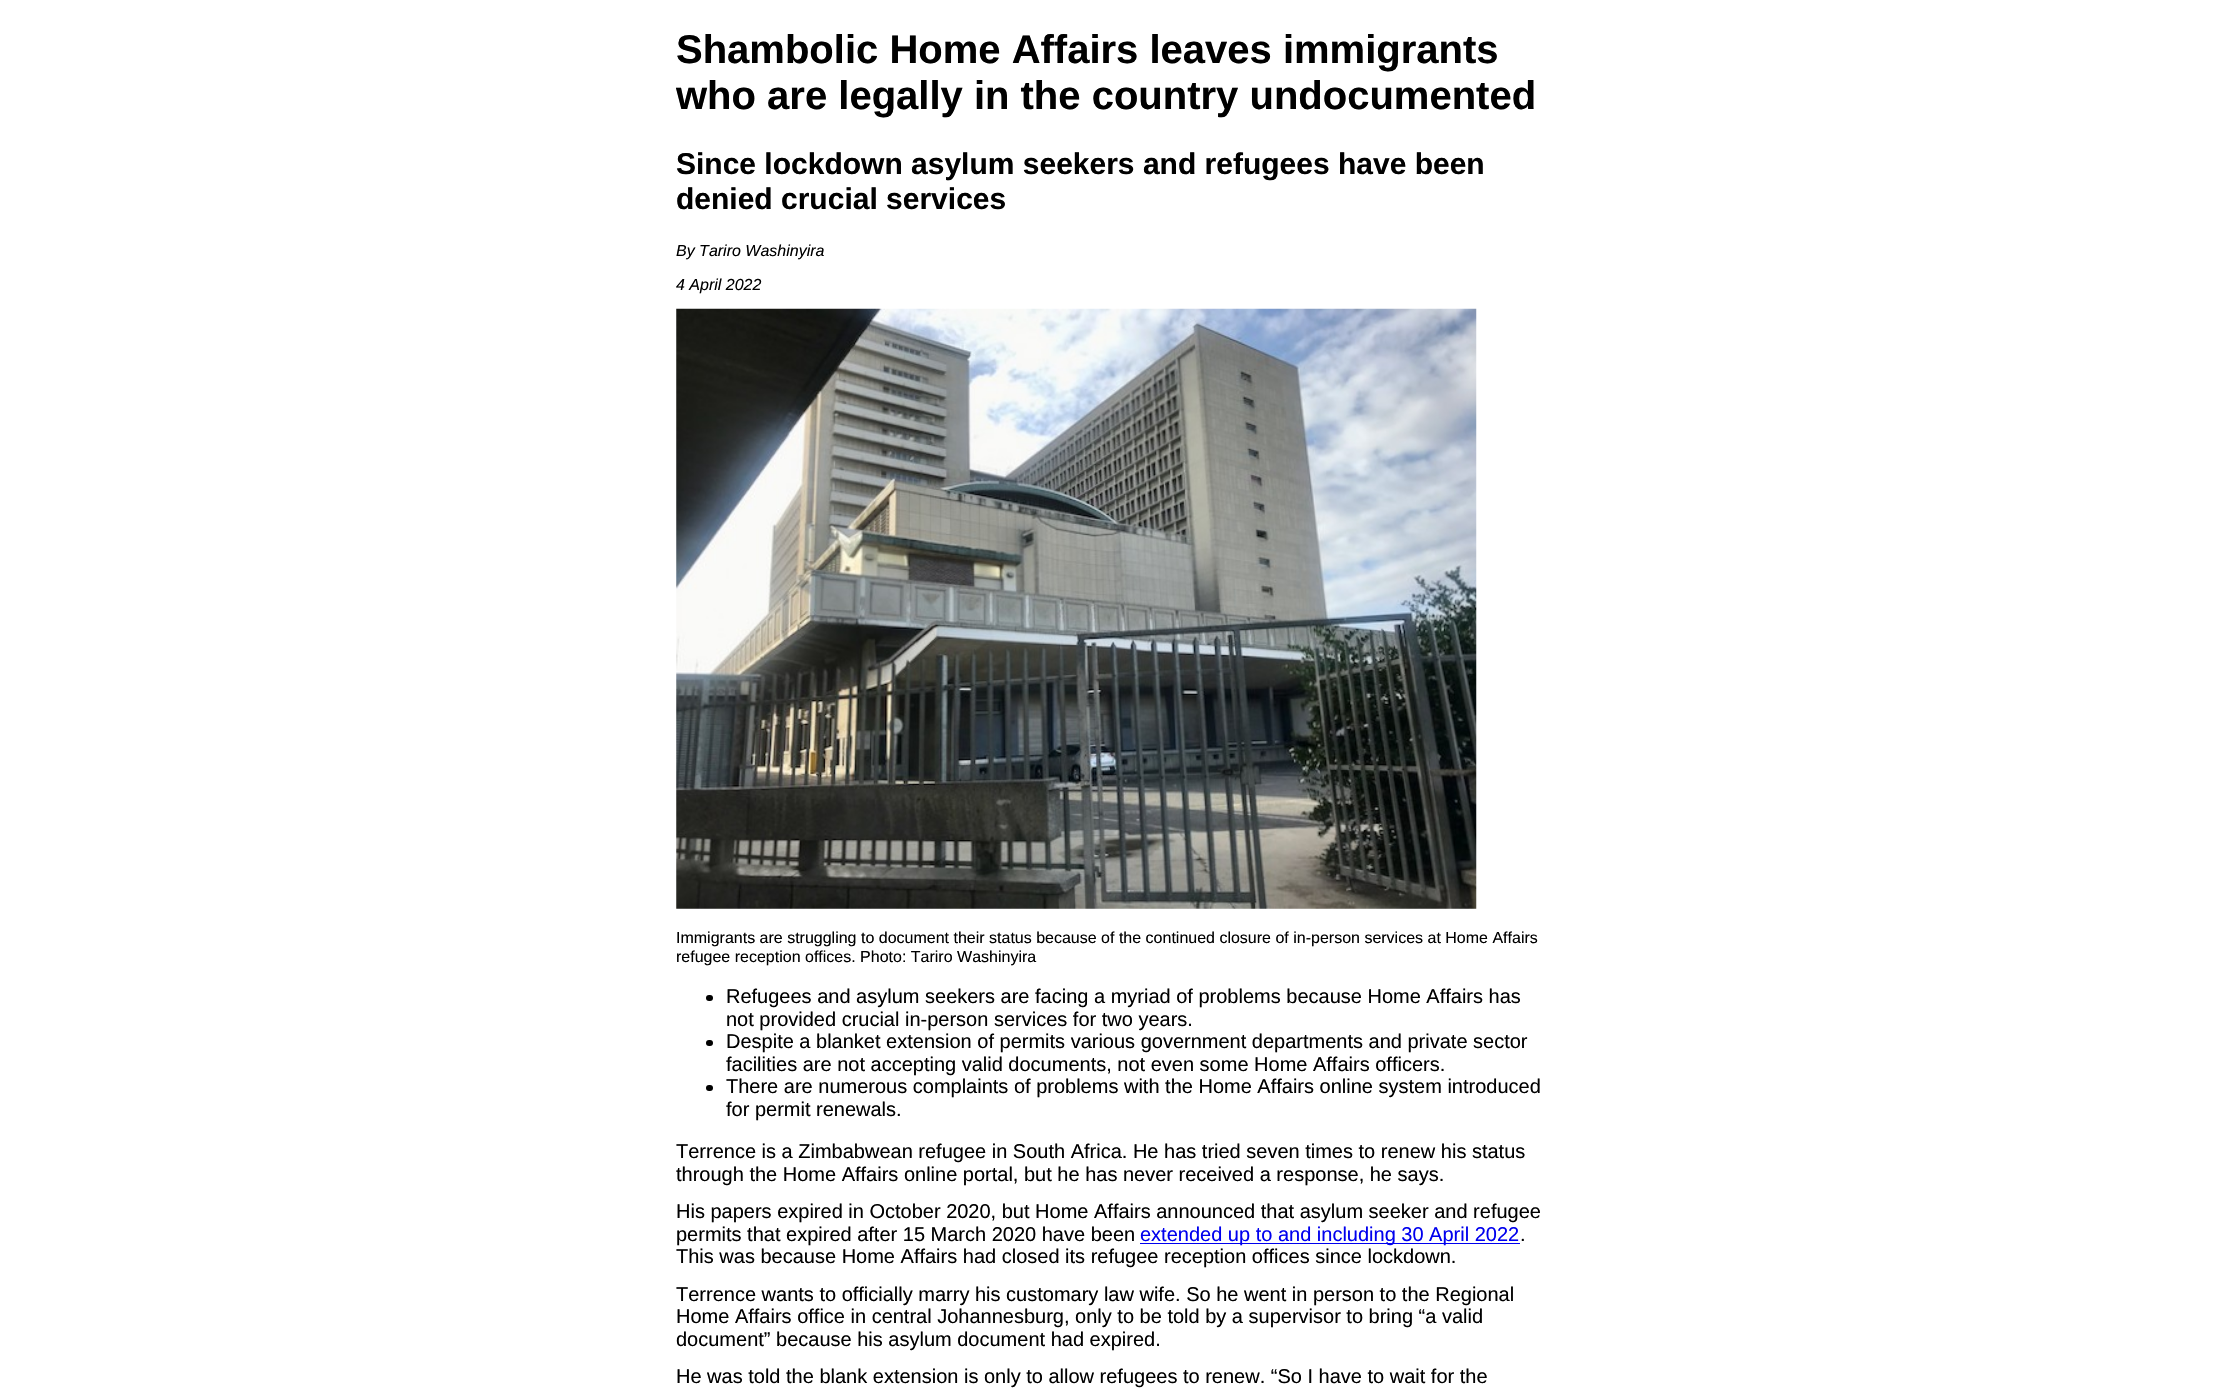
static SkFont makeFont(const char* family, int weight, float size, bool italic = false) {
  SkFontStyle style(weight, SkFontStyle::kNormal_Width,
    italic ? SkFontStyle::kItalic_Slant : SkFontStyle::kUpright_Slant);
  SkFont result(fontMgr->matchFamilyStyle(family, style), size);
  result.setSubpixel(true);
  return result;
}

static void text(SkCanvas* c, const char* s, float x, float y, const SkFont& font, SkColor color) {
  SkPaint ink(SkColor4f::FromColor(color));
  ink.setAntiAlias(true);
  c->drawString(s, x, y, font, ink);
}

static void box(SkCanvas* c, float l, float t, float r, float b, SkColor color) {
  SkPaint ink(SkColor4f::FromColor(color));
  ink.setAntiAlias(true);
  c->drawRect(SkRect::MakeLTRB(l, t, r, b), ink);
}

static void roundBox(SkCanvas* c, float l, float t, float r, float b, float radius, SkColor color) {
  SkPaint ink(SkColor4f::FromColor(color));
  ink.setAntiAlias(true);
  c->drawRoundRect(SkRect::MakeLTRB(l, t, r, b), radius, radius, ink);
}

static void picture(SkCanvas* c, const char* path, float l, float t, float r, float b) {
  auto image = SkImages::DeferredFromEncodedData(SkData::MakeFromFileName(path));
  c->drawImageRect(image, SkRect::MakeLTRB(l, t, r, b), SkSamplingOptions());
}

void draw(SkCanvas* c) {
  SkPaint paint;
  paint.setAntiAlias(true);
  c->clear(0xffffffff);
  SkFont face1 = makeFont("Liberation Sans", 700, 40);
  text(c, "Shambolic Home Affairs leaves immigrants", 676, 63, face1, 0xff000000);
  text(c, "who are legally in the country undocumented", 676, 109, face1, 0xff000000);
  SkFont face2 = makeFont("Liberation Sans", 700, 30);
  text(c, "Since lockdown asylum seekers and refugees have been", 676, 174, face2, 0xff000000);
  text(c, "denied crucial services", 676, 209, face2, 0xff000000);
  SkFont face3 = makeFont("Liberation Sans", 400, 16, true);
  text(c, "By Tariro Washinyira", 676, 256, face3, 0xff000000);
  text(c, "4 April 2022", 676, 290, face3, 0xff000000);
  picture(c, "img_01.png", 676, 308, 1477, 909);
  SkFont face4 = makeFont("Liberation Sans", 400, 16);
  text(c, "Immigrants are struggling to document their status because of the continued closure of in-person services at Home Affairs", 676, 943, face4, 0xff000000);
  text(c, "refugee reception offices. Photo: Tariro Washinyira", 676, 962, face4, 0xff000000);
  roundBox(c, 706, 995, 713, 1001, 3, 0xff000000);
  SkFont face5 = makeFont("Liberation Sans", 400, 20);
  text(c, "Refugees and asylum seekers are facing a myriad of problems because Home Affairs has", 726, 1003, face5, 0xff000000);
  text(c, "not provided crucial in-person services for two years.", 726, 1026, face5, 0xff000000);
  roundBox(c, 706, 1040, 713, 1046, 3, 0xff000000);
  text(c, "Despite a blanket extension of permits various government departments and private sector", 726, 1048, face5, 0xff000000);
  text(c, "facilities are not accepting valid documents, not even some Home Affairs officers.", 726, 1071, face5, 0xff000000);
  roundBox(c, 706, 1085, 713, 1091, 3, 0xff000000);
  text(c, "There are numerous complaints of problems with the Home Affairs online system introduced", 726, 1093, face5, 0xff000000);
  text(c, "for permit renewals.", 726, 1116, face5, 0xff000000);
  text(c, "Terrence is a Zimbabwean refugee in South Africa. He has tried seven times to renew his status", 676, 1158, face5, 0xff000000);
  text(c, "through the Home Affairs online portal, but he has never received a response, he says.", 676, 1181, face5, 0xff000000);
  text(c, "His papers expired in October 2020, but Home Affairs announced that asylum seeker and refugee", 676, 1218, face5, 0xff000000);
  text(c, "permits that expired after 15 March 2020 have been", 676, 1241, face5, 0xff000000);
  box(c, 1140, 1243, 1520, 1244, 0xff0000ee);
  text(c, "extended up to and including 30 April 2022", 1140, 1241, face5, 0xff0000ee);
  text(c, ".", 1520, 1241, face5, 0xff000000);
  text(c, "This was because Home Affairs had closed its refugee reception offices since lockdown.", 676, 1263, face5, 0xff000000);
  text(c, "Terrence wants to officially marry his customary law wife. So he went in person to the Regional", 676, 1301, face5, 0xff000000);
  text(c, "Home Affairs office in central Johannesburg, only to be told by a supervisor to bring “a valid", 676, 1323, face5, 0xff000000);
  text(c, "document” because his asylum document had expired.", 676, 1346, face5, 0xff000000);
  text(c, "He was told the blank extension is only to allow refugees to renew. “So I have to wait for the", 676, 1383, face5, 0xff000000);
}
